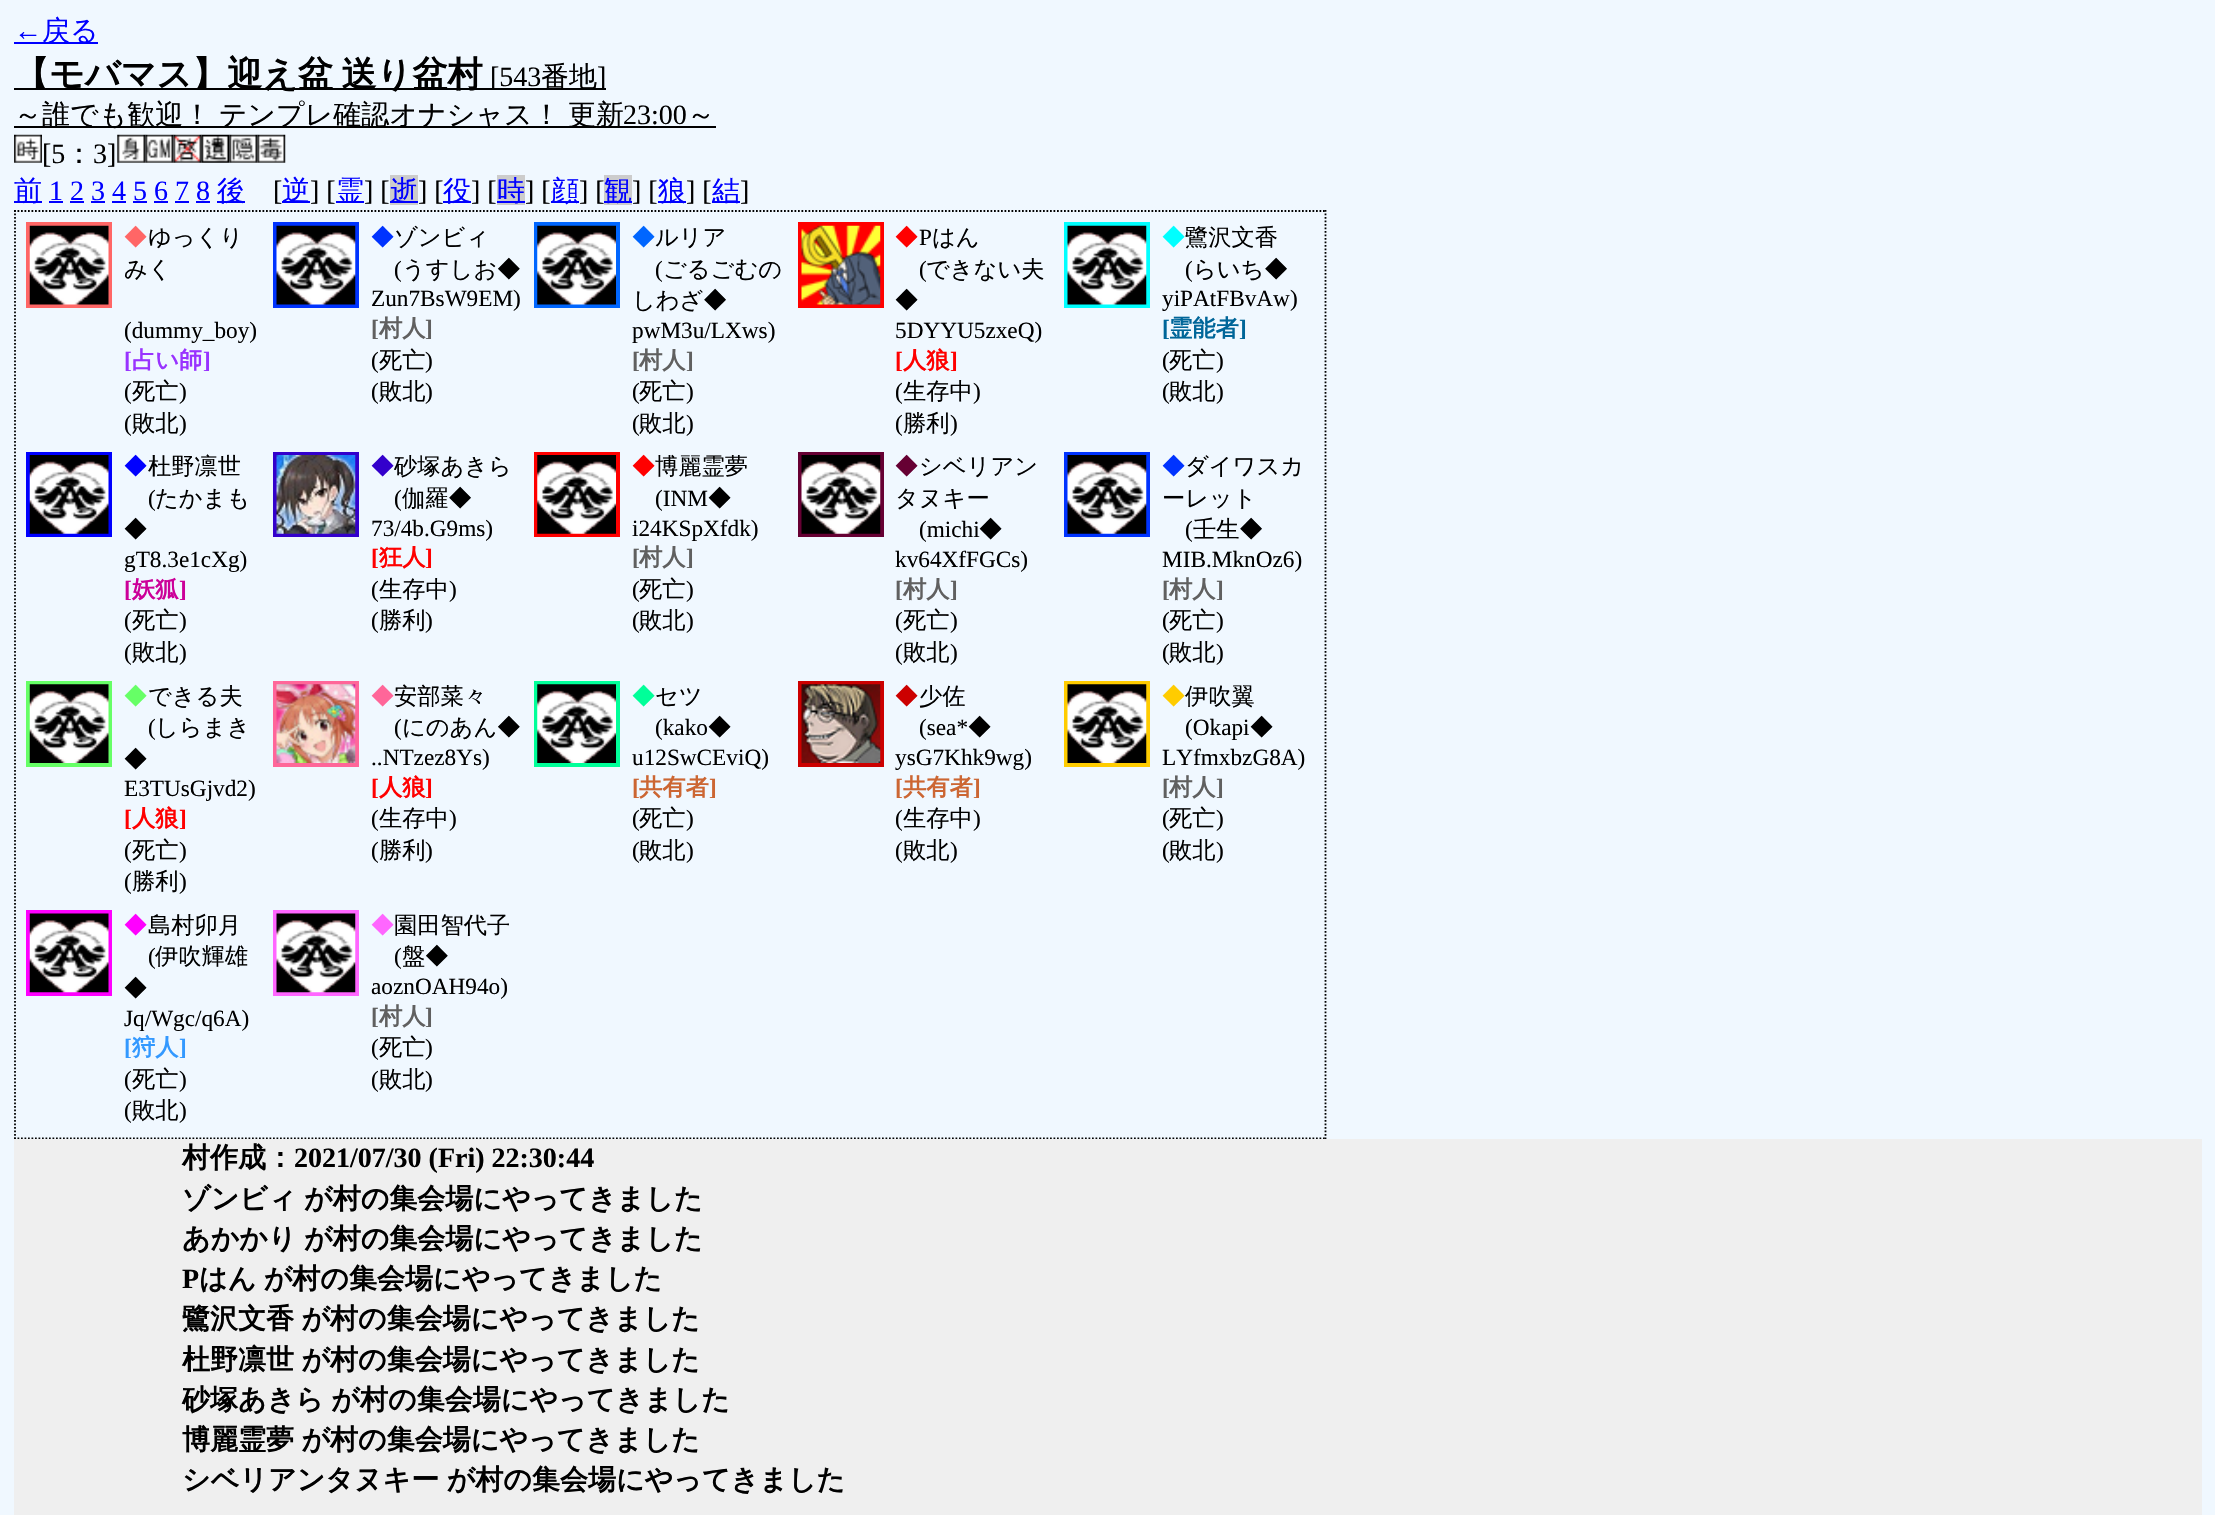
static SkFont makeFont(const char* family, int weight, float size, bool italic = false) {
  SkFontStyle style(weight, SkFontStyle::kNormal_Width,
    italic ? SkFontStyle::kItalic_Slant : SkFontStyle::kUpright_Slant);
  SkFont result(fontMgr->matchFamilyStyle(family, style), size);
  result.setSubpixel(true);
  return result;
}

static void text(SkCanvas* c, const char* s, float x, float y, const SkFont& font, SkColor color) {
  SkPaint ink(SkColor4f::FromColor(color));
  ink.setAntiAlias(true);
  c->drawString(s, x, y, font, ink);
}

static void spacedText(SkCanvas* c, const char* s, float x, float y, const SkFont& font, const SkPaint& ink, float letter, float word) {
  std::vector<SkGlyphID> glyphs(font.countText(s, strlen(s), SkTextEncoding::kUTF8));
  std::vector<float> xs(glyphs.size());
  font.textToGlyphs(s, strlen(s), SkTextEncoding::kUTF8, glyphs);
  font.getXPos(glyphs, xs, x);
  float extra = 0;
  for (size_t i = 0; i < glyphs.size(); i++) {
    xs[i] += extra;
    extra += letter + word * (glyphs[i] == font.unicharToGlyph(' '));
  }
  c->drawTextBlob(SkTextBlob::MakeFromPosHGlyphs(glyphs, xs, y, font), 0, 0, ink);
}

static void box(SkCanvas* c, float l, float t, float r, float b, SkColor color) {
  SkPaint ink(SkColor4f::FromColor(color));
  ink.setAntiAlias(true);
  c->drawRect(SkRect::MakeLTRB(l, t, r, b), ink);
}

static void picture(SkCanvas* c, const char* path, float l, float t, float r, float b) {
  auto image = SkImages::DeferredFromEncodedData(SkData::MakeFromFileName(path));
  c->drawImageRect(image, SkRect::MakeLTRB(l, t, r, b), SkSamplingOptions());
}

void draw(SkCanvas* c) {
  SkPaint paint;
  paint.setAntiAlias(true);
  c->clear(0xfff0f8ff);
  SkFont face1 = makeFont("Liberation Serif", 400, 28);
  text(c, "←", 14, 40, face1, 0xff0000ff);
  box(c, 14, 42, 98, 44, 0xff0000ff);
  SkFont face2 = makeFont("WenQuanYi Zen Hei", 500, 28);
  text(c, "戻る", 42, 40, face2, 0xff0000ff);
  box(c, 14, 88, 606, 90, 0xff000000);
  SkFont face3 = makeFont("WenQuanYi Zen Hei", 700, 35);
  paint.setColor(0xff000000);
  spacedText(c, "【モバマス】迎え盆 送り盆村", 14, 86, face3, paint, 0, -2);
  text(c, "[543", 490, 86, face1, 0xff000000);
  text(c, "番地", 541, 86, face2, 0xff000000);
  text(c, "]", 597, 86, face1, 0xff000000);
  box(c, 14, 126, 716, 128, 0xff000000);
  spacedText(c, "～誰でも歓迎！ テンプレ確認オナシャス！ 更新", 14, 124, face2, paint, 0, -1);
  text(c, "23:00", 623, 124, face1, 0xff000000);
  text(c, "～", 687, 124, face2, 0xff000000);
  picture(c, "img_01.png", 14, 134, 42, 163);
  text(c, "[5", 42, 163, face1, 0xff000000);
  text(c, "：", 65, 163, face2, 0xff000000);
  text(c, "3]", 93, 163, face1, 0xff000000);
  picture(c, "img_02.png", 117, 134, 146, 163);
  picture(c, "img_03.png", 145, 134, 174, 163);
  picture(c, "img_04.png", 173, 134, 202, 163);
  picture(c, "img_05.png", 201, 134, 230, 163);
  picture(c, "img_06.png", 229, 134, 258, 163);
  picture(c, "img_07.png", 257, 134, 286, 163);
  box(c, 14, 201, 42, 203, 0xff0000ff);
  text(c, "前", 14, 200, face2, 0xff0000ff);
  text(c, "1 2 3 4 5 6 7 8", 49, 200, face1, 0xff0000ff);
  box(c, 49, 201, 63, 203, 0xff0000ff);
  box(c, 217, 201, 245, 203, 0xff0000ff);
  text(c, "後", 217, 200, face2, 0xff0000ff);
  text(c, "[", 273, 200, face1, 0xff000000);
  box(c, 282, 201, 310, 203, 0xff0000ff);
  text(c, "逆", 282, 200, face2, 0xff0000ff);
  text(c, "] [", 310, 200, face1, 0xff000000);
  box(c, 336, 201, 364, 203, 0xff0000ff);
  text(c, "霊", 336, 200, face2, 0xff0000ff);
  text(c, "] [", 364, 200, face1, 0xff000000);
  box(c, 390, 175, 418, 205, 0xffcccccc);
  box(c, 390, 201, 418, 203, 0xff0000ff);
  text(c, "逝", 390, 200, face2, 0xff0000ff);
  text(c, "] [", 418, 200, face1, 0xff000000);
  box(c, 443, 201, 471, 203, 0xff0000ff);
  text(c, "役", 443, 200, face2, 0xff0000ff);
  text(c, "] [", 471, 200, face1, 0xff000000);
  box(c, 497, 175, 525, 205, 0xffcccccc);
  box(c, 497, 201, 525, 203, 0xff0000ff);
  text(c, "時", 497, 200, face2, 0xff0000ff);
  text(c, "] [", 525, 200, face1, 0xff000000);
  box(c, 551, 201, 579, 203, 0xff0000ff);
  text(c, "顔", 551, 200, face2, 0xff0000ff);
  text(c, "] [", 579, 200, face1, 0xff000000);
  box(c, 604, 175, 632, 205, 0xffcccccc);
  box(c, 604, 201, 632, 203, 0xff0000ff);
  text(c, "観", 604, 200, face2, 0xff0000ff);
  text(c, "] [", 632, 200, face1, 0xff000000);
  box(c, 658, 201, 686, 203, 0xff0000ff);
  text(c, "狼", 658, 200, face2, 0xff0000ff);
  text(c, "] [", 686, 200, face1, 0xff000000);
  box(c, 712, 201, 740, 203, 0xff0000ff);
  text(c, "結", 712, 200, face2, 0xff0000ff);
  text(c, "]", 740, 200, face1, 0xff000000);
  box(c, 70, 201, 84, 203, 0xff0000ff);
  box(c, 91, 201, 105, 203, 0xff0000ff);
  box(c, 112, 201, 126, 203, 0xff0000ff);
  box(c, 133, 201, 147, 203, 0xff0000ff);
  box(c, 154, 201, 168, 203, 0xff0000ff);
  box(c, 175, 201, 189, 203, 0xff0000ff);
  box(c, 196, 201, 210, 203, 0xff0000ff);
  paint.setStyle(SkPaint::kStroke_Style);
  paint.setStrokeWidth(1.8f);
  paint.setPathEffect(SkDashPathEffect::Make({{1.75f, 1.75f}}, 0));
  c->drawPath(SkPathBuilder().moveTo(14, 211).lineTo(1326.5f, 211).detach(), paint);
  paint.setPathEffect(nullptr);
  paint.setPathEffect(SkDashPathEffect::Make({{1.75f, 1.75f}}, 0));
  c->drawPath(SkPathBuilder().moveTo(1325.5f, 210).lineTo(1325.5f, 1139).detach(), paint);
  paint.setPathEffect(nullptr);
  paint.setPathEffect(SkDashPathEffect::Make({{1.75f, 1.75f}}, 0));
  c->drawPath(SkPathBuilder().moveTo(14, 1138.5f).lineTo(1326.5f, 1138.5f).detach(), paint);
  paint.setPathEffect(nullptr);
  paint.setPathEffect(SkDashPathEffect::Make({{1.75f, 1.75f}}, 0));
  c->drawPath(SkPathBuilder().moveTo(15, 210).lineTo(15, 1139).detach(), paint);
  paint.setPathEffect(nullptr);
  paint.setStrokeWidth(4);
  paint.setColor(0xffff6666);
  c->drawRect(SkRect::MakeLTRB(28, 224, 110, 306), paint);
  picture(c, "img_08.png", 29, 225, 109, 305);
  SkFont face4 = makeFont("WenQuanYi Zen Hei", 500, 23.25f);
  text(c, "◆", 124, 245, face4, 0xffff6666);
  text(c, "ゆっくり", 148, 245, face4, 0xff000000);
  text(c, "みく", 124, 277, face4, 0xff000000);
  SkFont face5 = makeFont("Liberation Serif", 400, 23.25f);
  text(c, "(dummy_boy)", 124, 338, face5, 0xff000000);
  SkFont face6 = makeFont("Liberation Serif", 700, 23.25f);
  text(c, "[", 124, 368, face6, 0xff9933ff);
  SkFont face7 = makeFont("WenQuanYi Zen Hei", 700, 23.25f);
  text(c, "占い師", 132, 368, face7, 0xff9933ff);
  text(c, "]", 203, 368, face6, 0xff9933ff);
  text(c, "(", 124, 399, face5, 0xff000000);
  text(c, "死亡", 132, 399, face4, 0xff000000);
  text(c, ")", 179, 399, face5, 0xff000000);
  text(c, "(", 124, 431, face5, 0xff000000);
  text(c, "敗北", 132, 431, face4, 0xff000000);
  text(c, ")", 179, 431, face5, 0xff000000);
  paint.setColor(0xff0033ff);
  c->drawRect(SkRect::MakeLTRB(275, 224, 357, 306), paint);
  picture(c, "img_09.png", 276, 225, 356, 305);
  text(c, "◆", 371, 245, face4, 0xff0033ff);
  text(c, "ゾンビィ", 394, 245, face4, 0xff000000);
  text(c, "(", 394, 277, face5, 0xff000000);
  text(c, "うすしお◆", 402, 277, face4, 0xff000000);
  text(c, "Zun7BsW9EM)", 371, 306, face5, 0xff000000);
  text(c, "[", 371, 336, face6, 0xff606060);
  text(c, "村人", 379, 336, face7, 0xff606060);
  text(c, "]", 425, 336, face6, 0xff606060);
  text(c, "(", 371, 368, face5, 0xff000000);
  text(c, "死亡", 379, 368, face4, 0xff000000);
  text(c, ")", 425, 368, face5, 0xff000000);
  text(c, "(", 371, 399, face5, 0xff000000);
  text(c, "敗北", 379, 399, face4, 0xff000000);
  text(c, ")", 425, 399, face5, 0xff000000);
  paint.setColor(0xff0066ff);
  c->drawRect(SkRect::MakeLTRB(536, 224, 618, 306), paint);
  picture(c, "img_10.png", 537, 225, 616, 305);
  text(c, "◆", 632, 245, face4, 0xff0066ff);
  text(c, "ルリア", 655, 245, face4, 0xff000000);
  text(c, "(", 655, 277, face5, 0xff000000);
  text(c, "ごるごむの", 663, 277, face4, 0xff000000);
  text(c, "しわざ◆", 632, 308, face4, 0xff000000);
  text(c, "pwM3u/LXws)", 632, 338, face5, 0xff000000);
  text(c, "[", 632, 368, face6, 0xff606060);
  text(c, "村人", 639, 368, face7, 0xff606060);
  text(c, "]", 686, 368, face6, 0xff606060);
  text(c, "(", 632, 399, face5, 0xff000000);
  text(c, "死亡", 639, 399, face4, 0xff000000);
  text(c, ")", 686, 399, face5, 0xff000000);
  text(c, "(", 632, 431, face5, 0xff000000);
  text(c, "敗北", 639, 431, face4, 0xff000000);
  text(c, ")", 686, 431, face5, 0xff000000);
  paint.setColor(0xffff0000);
  c->drawRect(SkRect::MakeLTRB(800, 224, 882, 306), paint);
  picture(c, "img_11.png", 801, 225, 881, 305);
  text(c, "◆", 895, 245, face4, 0xffff0000);
  text(c, "P", 919, 245, face5, 0xff000000);
  text(c, "はん", 932, 245, face4, 0xff000000);
  text(c, "(", 919, 277, face5, 0xff000000);
  text(c, "できない夫", 926, 277, face4, 0xff000000);
  text(c, "◆", 895, 308, face4, 0xff000000);
  text(c, "5DYYU5zxeQ)", 895, 338, face5, 0xff000000);
  text(c, "[", 895, 368, face6, 0xffff0000);
  text(c, "人狼", 903, 368, face7, 0xffff0000);
  text(c, "]", 950, 368, face6, 0xffff0000);
  text(c, "(", 895, 399, face5, 0xff000000);
  text(c, "生存中", 903, 399, face4, 0xff000000);
  text(c, ")", 973, 399, face5, 0xff000000);
  text(c, "(", 895, 431, face5, 0xff000000);
  text(c, "勝利", 903, 431, face4, 0xff000000);
  text(c, ")", 950, 431, face5, 0xff000000);
  paint.setColor(0xff00ffff);
  c->drawRect(SkRect::MakeLTRB(1066, 224, 1148, 306), paint);
  picture(c, "img_12.png", 1067, 225, 1147, 305);
  text(c, "◆", 1162, 245, face4, 0xff00ffff);
  text(c, "鷺沢文香", 1185, 245, face4, 0xff000000);
  text(c, "(", 1185, 277, face5, 0xff000000);
  text(c, "らいち◆", 1193, 277, face4, 0xff000000);
  text(c, "yiPAtFBvAw)", 1162, 306, face5, 0xff000000);
  text(c, "[", 1162, 336, face6, 0xff006699);
  text(c, "霊能者", 1169, 336, face7, 0xff006699);
  text(c, "]", 1239, 336, face6, 0xff006699);
  text(c, "(", 1162, 368, face5, 0xff000000);
  text(c, "死亡", 1169, 368, face4, 0xff000000);
  text(c, ")", 1216, 368, face5, 0xff000000);
  text(c, "(", 1162, 399, face5, 0xff000000);
  text(c, "敗北", 1169, 399, face4, 0xff000000);
  text(c, ")", 1216, 399, face5, 0xff000000);
  paint.setColor(0xff0000ff);
  c->drawRect(SkRect::MakeLTRB(28, 454, 110, 535), paint);
  picture(c, "img_13.png", 29, 455, 109, 534);
  text(c, "◆", 124, 474, face4, 0xff0000ff);
  text(c, "杜野凛世", 148, 474, face4, 0xff000000);
  text(c, "(", 148, 506, face5, 0xff000000);
  text(c, "たかまも", 155, 506, face4, 0xff000000);
  text(c, "◆", 124, 537, face4, 0xff000000);
  text(c, "gT8.3e1cXg)", 124, 567, face5, 0xff000000);
  text(c, "[", 124, 597, face6, 0xffcc0099);
  text(c, "妖狐", 132, 597, face7, 0xffcc0099);
  text(c, "]", 179, 597, face6, 0xffcc0099);
  text(c, "(", 124, 628, face5, 0xff000000);
  text(c, "死亡", 132, 628, face4, 0xff000000);
  text(c, ")", 179, 628, face5, 0xff000000);
  text(c, "(", 124, 660, face5, 0xff000000);
  text(c, "敗北", 132, 660, face4, 0xff000000);
  text(c, ")", 179, 660, face5, 0xff000000);
  paint.setColor(0xff3300cc);
  c->drawRect(SkRect::MakeLTRB(275, 454, 357, 535), paint);
  picture(c, "img_14.png", 276, 455, 356, 534);
  text(c, "◆", 371, 474, face4, 0xff3300cc);
  text(c, "砂塚あきら", 394, 474, face4, 0xff000000);
  text(c, "(", 394, 506, face5, 0xff000000);
  text(c, "伽羅◆", 402, 506, face4, 0xff000000);
  text(c, "73/4b.G9ms)", 371, 536, face5, 0xff000000);
  text(c, "[", 371, 565, face6, 0xffff0000);
  text(c, "狂人", 379, 565, face7, 0xffff0000);
  text(c, "]", 425, 565, face6, 0xffff0000);
  text(c, "(", 371, 597, face5, 0xff000000);
  text(c, "生存中", 379, 597, face4, 0xff000000);
  text(c, ")", 449, 597, face5, 0xff000000);
  text(c, "(", 371, 628, face5, 0xff000000);
  text(c, "勝利", 379, 628, face4, 0xff000000);
  text(c, ")", 425, 628, face5, 0xff000000);
  paint.setColor(0xffff0000);
  c->drawRect(SkRect::MakeLTRB(536, 454, 618, 535), paint);
  picture(c, "img_15.png", 537, 455, 616, 534);
  text(c, "◆", 632, 474, face4, 0xffff0000);
  text(c, "博麗霊夢", 655, 474, face4, 0xff000000);
  text(c, "(INM", 655, 506, face5, 0xff000000);
  text(c, "◆", 708, 506, face4, 0xff000000);
  text(c, "i24KSpXfdk)", 632, 536, face5, 0xff000000);
  text(c, "[", 632, 565, face6, 0xff606060);
  text(c, "村人", 639, 565, face7, 0xff606060);
  text(c, "]", 686, 565, face6, 0xff606060);
  text(c, "(", 632, 597, face5, 0xff000000);
  text(c, "死亡", 639, 597, face4, 0xff000000);
  text(c, ")", 686, 597, face5, 0xff000000);
  text(c, "(", 632, 628, face5, 0xff000000);
  text(c, "敗北", 639, 628, face4, 0xff000000);
  text(c, ")", 686, 628, face5, 0xff000000);
  paint.setColor(0xff660033);
  c->drawRect(SkRect::MakeLTRB(800, 454, 882, 535), paint);
  picture(c, "img_16.png", 801, 455, 881, 534);
  text(c, "◆", 895, 474, face4, 0xff660033);
  text(c, "シベリアン", 919, 474, face4, 0xff000000);
  text(c, "タヌキー", 895, 506, face4, 0xff000000);
  text(c, "(michi", 919, 537, face5, 0xff000000);
  text(c, "◆", 979, 537, face4, 0xff000000);
  text(c, "kv64XfFGCs)", 895, 567, face5, 0xff000000);
  text(c, "[", 895, 597, face6, 0xff606060);
  text(c, "村人", 903, 597, face7, 0xff606060);
  text(c, "]", 950, 597, face6, 0xff606060);
  text(c, "(", 895, 628, face5, 0xff000000);
  text(c, "死亡", 903, 628, face4, 0xff000000);
  text(c, ")", 950, 628, face5, 0xff000000);
  text(c, "(", 895, 660, face5, 0xff000000);
  text(c, "敗北", 903, 660, face4, 0xff000000);
  text(c, ")", 950, 660, face5, 0xff000000);
  paint.setColor(0xff0033ff);
  c->drawRect(SkRect::MakeLTRB(1066, 454, 1148, 535), paint);
  picture(c, "img_17.png", 1067, 455, 1147, 534);
  text(c, "◆", 1162, 474, face4, 0xff0033ff);
  text(c, "ダイワスカ", 1185, 474, face4, 0xff000000);
  text(c, "ーレット", 1162, 506, face4, 0xff000000);
  text(c, "(", 1185, 537, face5, 0xff000000);
  text(c, "壬生◆", 1193, 537, face4, 0xff000000);
  text(c, "MIB.MknOz6)", 1162, 567, face5, 0xff000000);
  text(c, "[", 1162, 597, face6, 0xff606060);
  text(c, "村人", 1169, 597, face7, 0xff606060);
  text(c, "]", 1216, 597, face6, 0xff606060);
  text(c, "(", 1162, 628, face5, 0xff000000);
  text(c, "死亡", 1169, 628, face4, 0xff000000);
  text(c, ")", 1216, 628, face5, 0xff000000);
  text(c, "(", 1162, 660, face5, 0xff000000);
  text(c, "敗北", 1169, 660, face4, 0xff000000);
  text(c, ")", 1216, 660, face5, 0xff000000);
  paint.setColor(0xff66ff66);
  c->drawRect(SkRect::MakeLTRB(28, 683, 110, 765), paint);
  picture(c, "img_18.png", 29, 684, 109, 763);
  text(c, "◆", 124, 704, face4, 0xff66ff66);
  text(c, "できる夫", 148, 704, face4, 0xff000000);
  text(c, "(", 148, 735, face5, 0xff000000);
  text(c, "しらまき", 155, 735, face4, 0xff000000);
  text(c, "◆", 124, 767, face4, 0xff000000);
  text(c, "E3TUsGjvd2)", 124, 796, face5, 0xff000000);
  text(c, "[", 124, 826, face6, 0xffff0000);
  text(c, "人狼", 132, 826, face7, 0xffff0000);
  text(c, "]", 179, 826, face6, 0xffff0000);
  text(c, "(", 124, 858, face5, 0xff000000);
  text(c, "死亡", 132, 858, face4, 0xff000000);
  text(c, ")", 179, 858, face5, 0xff000000);
  text(c, "(", 124, 889, face5, 0xff000000);
  text(c, "勝利", 132, 889, face4, 0xff000000);
  text(c, ")", 179, 889, face5, 0xff000000);
  paint.setColor(0xffff6699);
  c->drawRect(SkRect::MakeLTRB(275, 683, 357, 765), paint);
  picture(c, "img_19.png", 276, 684, 356, 763);
  text(c, "◆", 371, 704, face4, 0xffff6699);
  text(c, "安部菜々", 394, 704, face4, 0xff000000);
  text(c, "(", 394, 735, face5, 0xff000000);
  text(c, "にのあん◆", 402, 735, face4, 0xff000000);
  text(c, "..NTzez8Ys)", 371, 765, face5, 0xff000000);
  text(c, "[", 371, 795, face6, 0xffff0000);
  text(c, "人狼", 379, 795, face7, 0xffff0000);
  text(c, "]", 425, 795, face6, 0xffff0000);
  text(c, "(", 371, 826, face5, 0xff000000);
  text(c, "生存中", 379, 826, face4, 0xff000000);
  text(c, ")", 449, 826, face5, 0xff000000);
  text(c, "(", 371, 858, face5, 0xff000000);
  text(c, "勝利", 379, 858, face4, 0xff000000);
  text(c, ")", 425, 858, face5, 0xff000000);
  paint.setColor(0xff00ff99);
  c->drawRect(SkRect::MakeLTRB(536, 683, 618, 765), paint);
  picture(c, "img_20.png", 537, 684, 616, 763);
  text(c, "◆", 632, 704, face4, 0xff00ff99);
  text(c, "セツ", 655, 704, face4, 0xff000000);
  text(c, "(kako", 655, 735, face5, 0xff000000);
  text(c, "◆", 708, 735, face4, 0xff000000);
  text(c, "u12SwCEviQ)", 632, 765, face5, 0xff000000);
  text(c, "[", 632, 795, face6, 0xffcc6633);
  text(c, "共有者", 639, 795, face7, 0xffcc6633);
  text(c, "]", 709, 795, face6, 0xffcc6633);
  text(c, "(", 632, 826, face5, 0xff000000);
  text(c, "死亡", 639, 826, face4, 0xff000000);
  text(c, ")", 686, 826, face5, 0xff000000);
  text(c, "(", 632, 858, face5, 0xff000000);
  text(c, "敗北", 639, 858, face4, 0xff000000);
  text(c, ")", 686, 858, face5, 0xff000000);
  paint.setColor(0xffcc0000);
  c->drawRect(SkRect::MakeLTRB(800, 683, 882, 765), paint);
  picture(c, "img_21.png", 801, 684, 881, 763);
  text(c, "◆", 895, 704, face4, 0xffcc0000);
  text(c, "少佐", 919, 704, face4, 0xff000000);
  text(c, "(sea*", 919, 735, face5, 0xff000000);
  text(c, "◆", 968, 735, face4, 0xff000000);
  text(c, "ysG7Khk9wg)", 895, 765, face5, 0xff000000);
  text(c, "[", 895, 795, face6, 0xffcc6633);
  text(c, "共有者", 903, 795, face7, 0xffcc6633);
  text(c, "]", 973, 795, face6, 0xffcc6633);
  text(c, "(", 895, 826, face5, 0xff000000);
  text(c, "生存中", 903, 826, face4, 0xff000000);
  text(c, ")", 973, 826, face5, 0xff000000);
  text(c, "(", 895, 858, face5, 0xff000000);
  text(c, "敗北", 903, 858, face4, 0xff000000);
  text(c, ")", 950, 858, face5, 0xff000000);
  paint.setColor(0xffffcc00);
  c->drawRect(SkRect::MakeLTRB(1066, 683, 1148, 765), paint);
  picture(c, "img_22.png", 1067, 684, 1147, 763);
  text(c, "◆", 1162, 704, face4, 0xffffcc00);
  text(c, "伊吹翼", 1185, 704, face4, 0xff000000);
  text(c, "(Okapi", 1185, 735, face5, 0xff000000);
  text(c, "◆", 1250, 735, face4, 0xff000000);
  text(c, "LYfmxbzG8A)", 1162, 765, face5, 0xff000000);
  text(c, "[", 1162, 795, face6, 0xff606060);
  text(c, "村人", 1169, 795, face7, 0xff606060);
  text(c, "]", 1216, 795, face6, 0xff606060);
  text(c, "(", 1162, 826, face5, 0xff000000);
  text(c, "死亡", 1169, 826, face4, 0xff000000);
  text(c, ")", 1216, 826, face5, 0xff000000);
  text(c, "(", 1162, 858, face5, 0xff000000);
  text(c, "敗北", 1169, 858, face4, 0xff000000);
  text(c, ")", 1216, 858, face5, 0xff000000);
  paint.setColor(0xffff00ff);
  c->drawRect(SkRect::MakeLTRB(28, 912, 110, 994), paint);
  picture(c, "img_23.png", 29, 913, 109, 993);
  text(c, "◆", 124, 933, face4, 0xffff00ff);
  text(c, "島村卯月", 148, 933, face4, 0xff000000);
  text(c, "(", 148, 964, face5, 0xff000000);
  text(c, "伊吹輝雄", 155, 964, face4, 0xff000000);
  text(c, "◆", 124, 996, face4, 0xff000000);
  text(c, "Jq/Wgc/q6A)", 124, 1026, face5, 0xff000000);
  text(c, "[", 124, 1055, face6, 0xff3399ff);
  text(c, "狩人", 132, 1055, face7, 0xff3399ff);
  text(c, "]", 179, 1055, face6, 0xff3399ff);
  text(c, "(", 124, 1087, face5, 0xff000000);
  text(c, "死亡", 132, 1087, face4, 0xff000000);
  text(c, ")", 179, 1087, face5, 0xff000000);
  text(c, "(", 124, 1118, face5, 0xff000000);
  text(c, "敗北", 132, 1118, face4, 0xff000000);
  text(c, ")", 179, 1118, face5, 0xff000000);
  paint.setColor(0xffff66ff);
  c->drawRect(SkRect::MakeLTRB(275, 912, 357, 994), paint);
  picture(c, "img_24.png", 276, 913, 356, 993);
  text(c, "◆", 371, 933, face4, 0xffff66ff);
  text(c, "園田智代子", 394, 933, face4, 0xff000000);
  text(c, "(", 394, 964, face5, 0xff000000);
  text(c, "盤◆", 402, 964, face4, 0xff000000);
  text(c, "aoznOAH94o)", 371, 994, face5, 0xff000000);
  text(c, "[", 371, 1024, face6, 0xff606060);
  text(c, "村人", 379, 1024, face7, 0xff606060);
  text(c, "]", 425, 1024, face6, 0xff606060);
  text(c, "(", 371, 1055, face5, 0xff000000);
  text(c, "死亡", 379, 1055, face4, 0xff000000);
  text(c, ")", 425, 1055, face5, 0xff000000);
  text(c, "(", 371, 1087, face5, 0xff000000);
  text(c, "敗北", 379, 1087, face4, 0xff000000);
  text(c, ")", 425, 1087, face5, 0xff000000);
  box(c, 14, 1139, 2202, 1515, 0xffefefef);
  SkFont face8 = makeFont("WenQuanYi Zen Hei", 700, 28);
  text(c, "村作成：", 182, 1167, face8, 0xff000000);
  SkFont face9 = makeFont("Liberation Serif", 700, 28);
  text(c, "2021/07/30 (Fri) 22:30:44", 294, 1167, face9, 0xff000000);
  paint.setStyle(SkPaint::kFill_Style);
  paint.setColor(0xff000000);
  spacedText(c, "ゾンビィ が村の集会場にやってきました", 182, 1208, face8, paint, 0, -1);
  spacedText(c, "あかかり が村の集会場にやってきました", 182, 1248, face8, paint, 0, -1);
  text(c, "P", 182, 1288, face9, 0xff000000);
  spacedText(c, "はん が村の集会場にやってきました", 199, 1288, face8, paint, 0, -1);
  spacedText(c, "鷺沢文香 が村の集会場にやってきました", 182, 1328, face8, paint, 0, -1);
  spacedText(c, "杜野凛世 が村の集会場にやってきました", 182, 1369, face8, paint, 0, -1);
  spacedText(c, "砂塚あきら が村の集会場にやってきました", 182, 1409, face8, paint, 0, -1);
  spacedText(c, "博麗霊夢 が村の集会場にやってきました", 182, 1449, face8, paint, 0, -1);
  spacedText(c, "シベリアンタヌキー が村の集会場にやってきました", 182, 1489, face8, paint, 0, -1);
}
